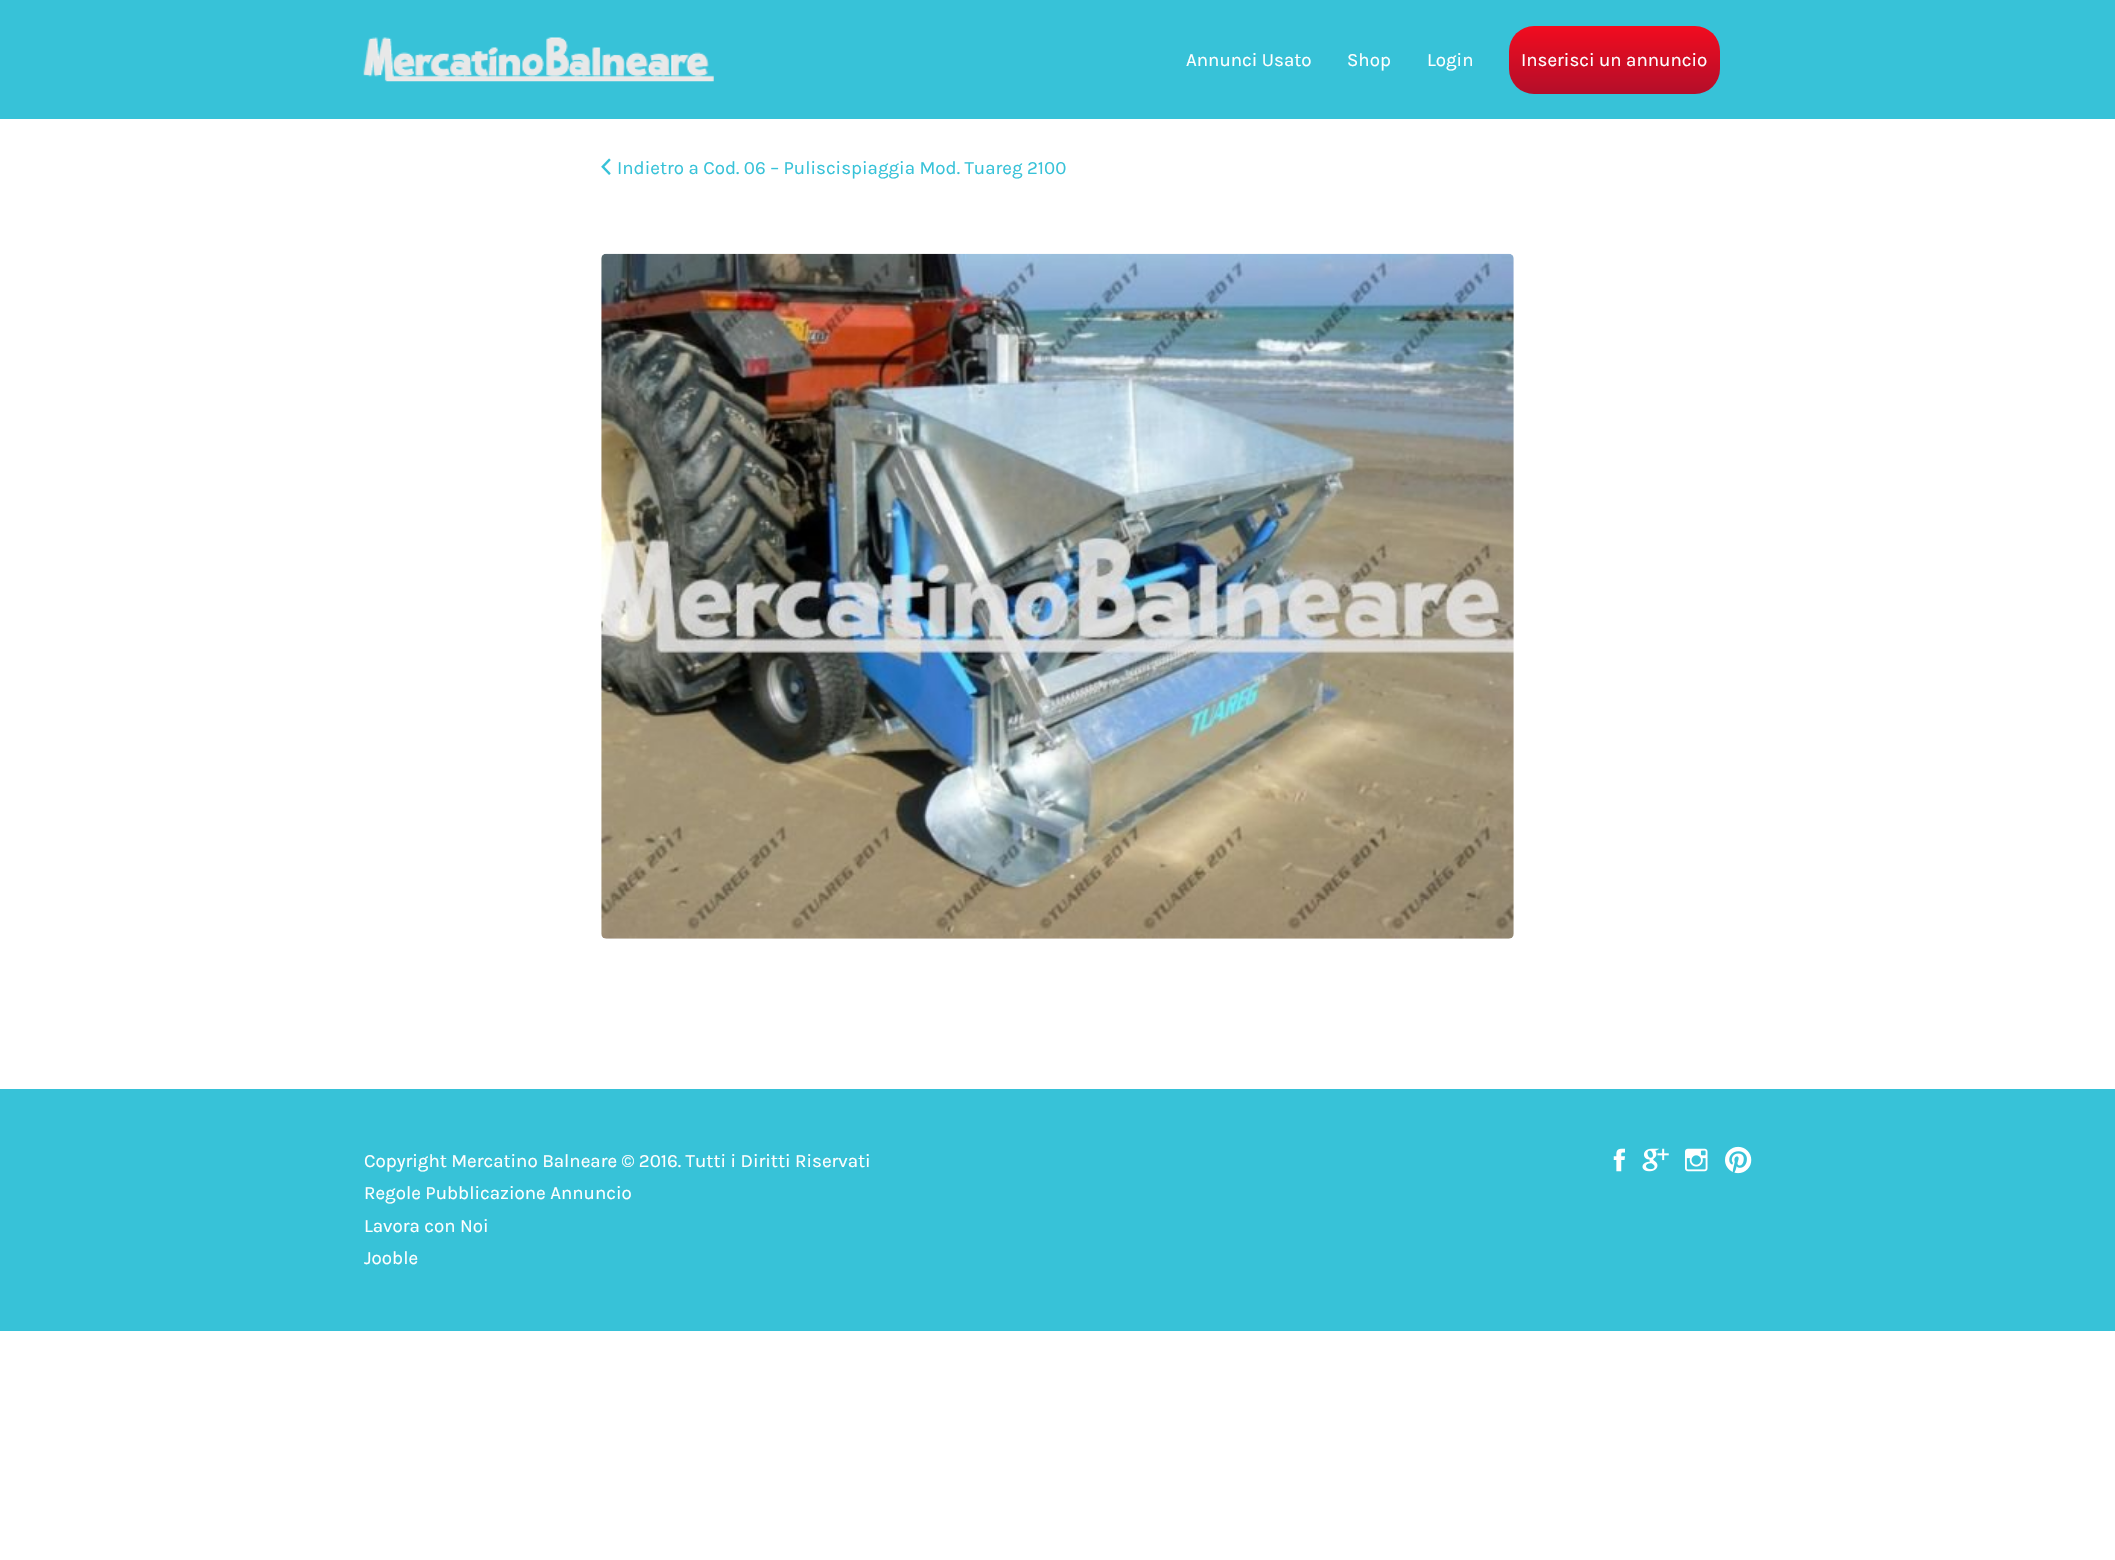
static SkFont makeFont(const char* family, int weight, float size, bool italic = false) {
  SkFontStyle style(weight, SkFontStyle::kNormal_Width,
    italic ? SkFontStyle::kItalic_Slant : SkFontStyle::kUpright_Slant);
  SkFont result(fontMgr->matchFamilyStyle(family, style), size);
  result.setSubpixel(true);
  return result;
}

static void text(SkCanvas* c, const char* s, float x, float y, const SkFont& font, SkColor color) {
  SkPaint ink(SkColor4f::FromColor(color));
  ink.setAntiAlias(true);
  c->drawString(s, x, y, font, ink);
}

static void box(SkCanvas* c, float l, float t, float r, float b, SkColor color) {
  SkPaint ink(SkColor4f::FromColor(color));
  ink.setAntiAlias(true);
  c->drawRect(SkRect::MakeLTRB(l, t, r, b), ink);
}

static void picture(SkCanvas* c, const char* path, float l, float t, float r, float b) {
  auto image = SkImages::DeferredFromEncodedData(SkData::MakeFromFileName(path));
  c->drawImageRect(image, SkRect::MakeLTRB(l, t, r, b), SkSamplingOptions());
}

void draw(SkCanvas* c) {
  SkPaint paint;
  paint.setAntiAlias(true);
  c->clear(0xffffffff);
  box(c, 0, 0, 2115, 119, 0xff37c2d8);
  picture(c, "img_01.png", 363, 37, 714, 82);
  SkFont face1 = makeFont("Karla", 400, 18.75f);
  text(c, "Annunci Usato", 1186, 66, face1, 0xffffffff);
  text(c, "Shop", 1347, 66, face1, 0xffffffff);
  text(c, "Login", 1427, 66, face1, 0xffffffff);
  {
    const SkColor colors[] = {0xfff20c1f, 0xffb30e2a};
    const float stops[] = {0, 1};
    const SkPoint ends[] = {{1614, 26}, {1614, 94}};
    paint.setShader(SkGradientShader::MakeLinear(ends, colors, stops, 2, SkTileMode::kClamp));
    paint.setAlpha(255);
  }
  c->drawRoundRect(SkRect::MakeLTRB(1509, 26, 1720, 94), 25, 25, paint);
  text(c, "Inserisci un annuncio", 1521, 66, face1, 0xffffffff);
  picture(c, "img_02.png", 601, 158, 611, 175);
  text(c, "Indietro a Cod. 06 – Puliscispiaggia Mod. Tuareg 2100", 617, 174, face1, 0xff37c2d8);
  picture(c, "img_03.png", 601, 253, 1514, 939);
  box(c, 0, 1089, 2115, 1331, 0xff37c2d8);
  text(c, "Copyright Mercatino Balneare © 2016. Tutti i Diritti Riservati", 364, 1167, face1, 0xffffffff);
  text(c, "Regole Pubblicazione Annuncio", 364, 1199, face1, 0xffffffff);
  text(c, "Lavora con Noi", 364, 1232, face1, 0xffffffff);
  text(c, "Jooble", 364, 1264, face1, 0xffffffff);
  picture(c, "img_04.png", 1613, 1148, 1625, 1172);
  picture(c, "img_05.png", 1642, 1148, 1669, 1172);
  picture(c, "img_06.png", 1685, 1148, 1708, 1172);
  picture(c, "img_07.png", 1725, 1146, 1752, 1174);
}
